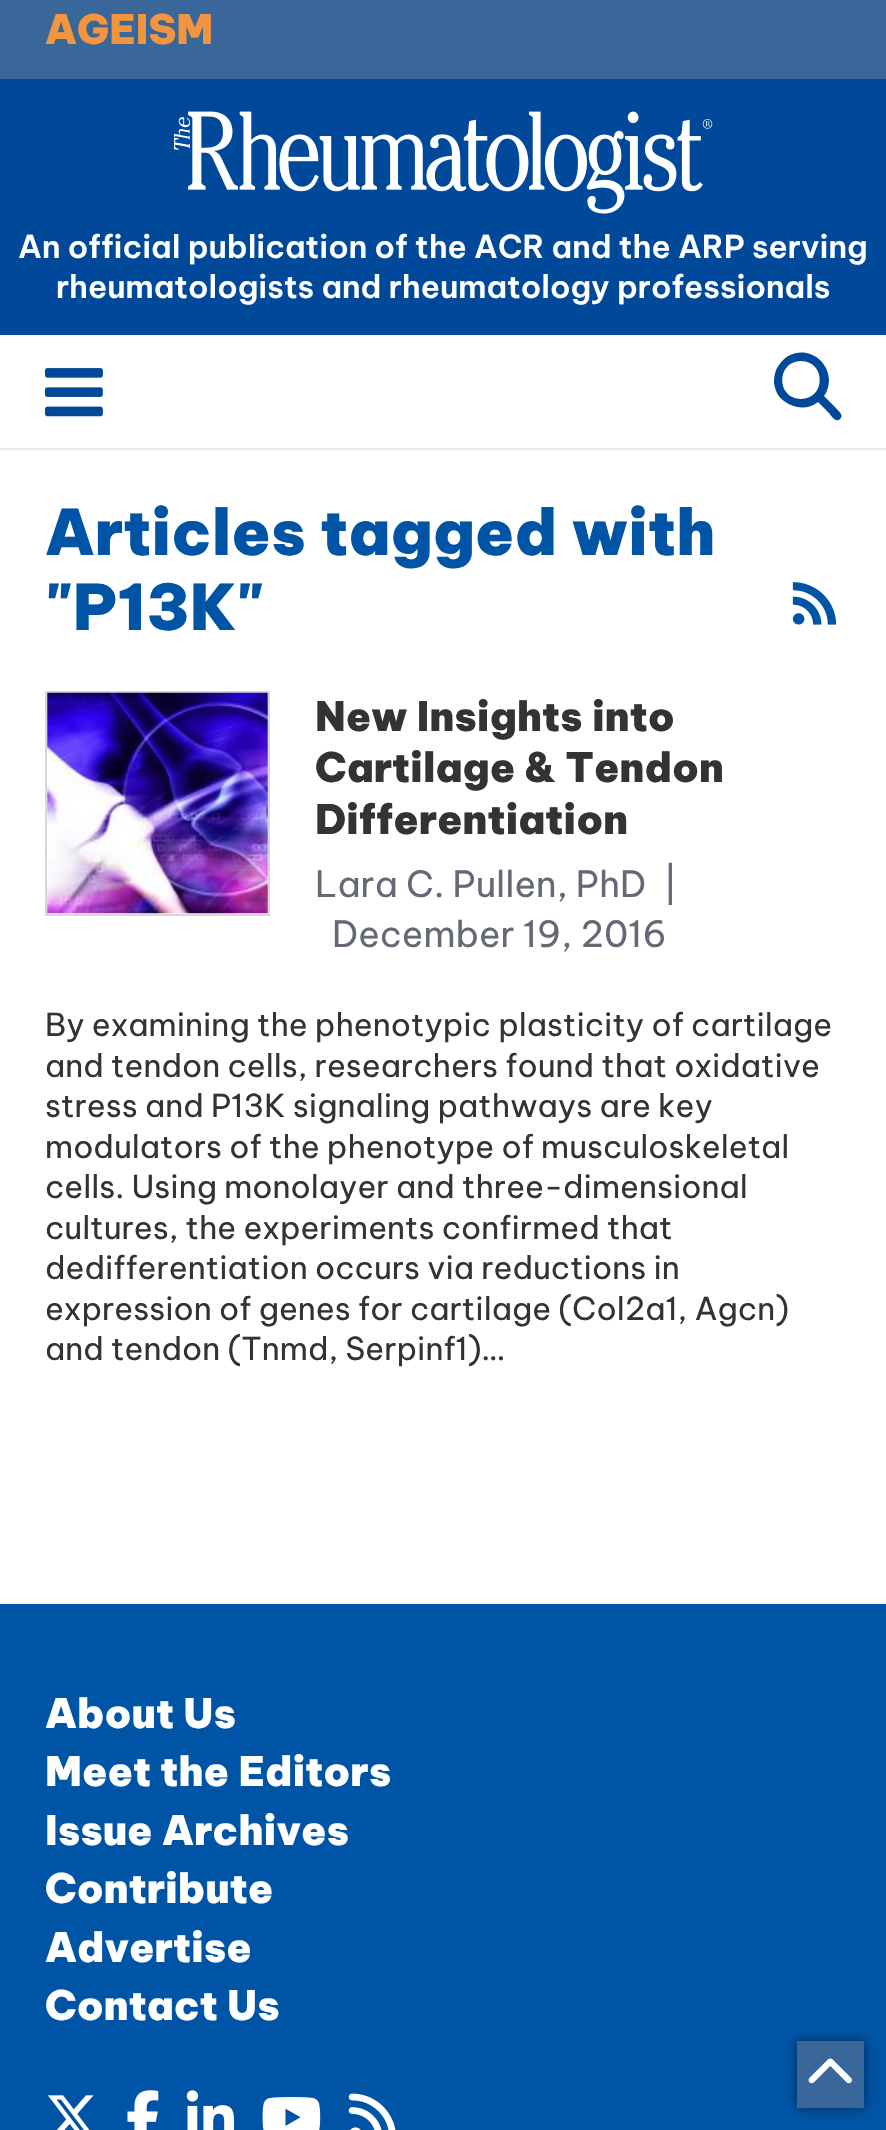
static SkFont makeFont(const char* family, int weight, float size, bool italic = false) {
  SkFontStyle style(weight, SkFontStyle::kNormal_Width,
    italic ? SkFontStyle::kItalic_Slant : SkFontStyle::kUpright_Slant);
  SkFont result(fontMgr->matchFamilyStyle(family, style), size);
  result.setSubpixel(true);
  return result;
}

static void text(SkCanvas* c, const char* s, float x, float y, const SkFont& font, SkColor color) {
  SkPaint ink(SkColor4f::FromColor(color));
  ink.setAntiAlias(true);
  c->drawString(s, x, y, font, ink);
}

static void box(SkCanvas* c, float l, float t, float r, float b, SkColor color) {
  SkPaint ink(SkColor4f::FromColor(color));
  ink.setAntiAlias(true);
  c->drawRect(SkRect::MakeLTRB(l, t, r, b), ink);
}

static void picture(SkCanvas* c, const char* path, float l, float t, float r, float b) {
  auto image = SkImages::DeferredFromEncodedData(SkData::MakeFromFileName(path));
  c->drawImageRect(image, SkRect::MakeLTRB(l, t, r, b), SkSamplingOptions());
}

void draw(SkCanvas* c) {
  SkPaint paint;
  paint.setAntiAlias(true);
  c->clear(0xffffffff);
  box(c, 0, 0, 886, 79, 0xff3a6799);
  SkFont face1 = makeFont("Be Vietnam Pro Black", 900, 40.5f);
  text(c, "AGEISM", 45, 44, face1, 0xfff3953f);
  box(c, 0, 79, 886, 335, 0xff004899);
  picture(c, "img_01.png", 173, 111, 713, 214);
  SkFont face2 = makeFont("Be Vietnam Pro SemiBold", 600, 31.5f);
  text(c, "An official publication of the ACR and the ARP serving", 18, 258, face2, 0xffffffff);
  text(c, "rheumatologists and rheumatology professionals", 56, 298, face2, 0xffffffff);
  box(c, 0, 448, 886, 450, 0xffe9eaec);
  picture(c, "img_02.png", 45, 368, 103, 417);
  paint.setColor(0xff004899);
  c->drawPath(SkPathBuilder().moveTo(829, 380).cubicTo(829, 386, 827, 392, 824, 396).lineTo(835, 407).cubicTo(837, 410, 845, 415, 840, 419).cubicTo(836, 423, 831, 416, 829, 413).lineTo(818, 402).cubicTo(808, 410, 794, 409, 784, 401).cubicTo(778, 397, 775, 390, 774, 383).cubicTo(774, 377, 775, 370, 779, 365).cubicTo(794, 342, 828, 353, 829, 380).close().moveTo(801, 399).cubicTo(826, 399, 826, 361, 801, 361).cubicTo(776, 361, 776, 399, 801, 399).close().detach(), paint);
  SkFont face3 = makeFont("Be Vietnam Pro Black", 900, 63);
  text(c, "Articles tagged with", 45, 555, face3, 0xff0054a6);
  text(c, "\"P13K\"", 45, 630, face3, 0xff0054a6);
  picture(c, "img_03.png", 792, 582, 837, 625);
  paint.setStyle(SkPaint::kStroke_Style);
  paint.setStrokeWidth(2);
  paint.setColor(0xffd7d7d7);
  c->drawRect(SkRect::MakeLTRB(46, 692, 269, 915), paint);
  picture(c, "img_04.png", 47, 692, 268, 914);
  text(c, "New Insights into", 315, 731, face1, 0xff333333);
  text(c, "Cartilage & Tendon", 315, 782, face1, 0xff333333);
  text(c, "Differentiation", 315, 834, face1, 0xff333333);
  SkFont face4 = makeFont("Be Vietnam Pro", 400, 36);
  text(c, "Lara C. Pullen, PhD", 315, 897, face4, 0xff656976);
  text(c, "|", 663, 897, face4, 0xff656976);
  text(c, "December 19, 2016", 332, 947, face4, 0xff656976);
  SkFont face5 = makeFont("Be Vietnam Pro", 400, 31.5f);
  text(c, "By examining the phenotypic plasticity of cartilage", 45, 1036, face5, 0xff333333);
  text(c, "and tendon cells, researchers found that oxidative", 45, 1077, face5, 0xff333333);
  text(c, "stress and P13K signaling pathways are key", 45, 1117, face5, 0xff333333);
  text(c, "modulators of the phenotype of musculoskeletal", 45, 1158, face5, 0xff333333);
  text(c, "cells. Using monolayer and three-dimensional", 45, 1198, face5, 0xff333333);
  text(c, "cultures, the experiments confirmed that", 45, 1239, face5, 0xff333333);
  text(c, "dedifferentiation occurs via reductions in", 45, 1279, face5, 0xff333333);
  text(c, "expression of genes for cartilage (Col2a1, Agcn)", 45, 1320, face5, 0xff333333);
  text(c, "and tendon (Tnmd, Serpinf1)…", 45, 1360, face5, 0xff333333);
  box(c, 0, 1604, 886, 2130, 0xff0054a6);
  text(c, "About Us", 45, 1728, face1, 0xffffffff);
  text(c, "Meet the Editors", 45, 1786, face1, 0xffffffff);
  text(c, "Issue Archives", 45, 1845, face1, 0xffffffff);
  text(c, "Contribute", 45, 1903, face1, 0xffffffff);
  text(c, "Advertise", 45, 1962, face1, 0xffffffff);
  text(c, "Contact Us", 45, 2020, face1, 0xffffffff);
  picture(c, "img_05.png", 48, 2095, 94, 2130);
  picture(c, "img_06.png", 127, 2090, 159, 2130);
  picture(c, "img_07.png", 186, 2090, 234, 2130);
  picture(c, "img_08.png", 262, 2097, 321, 2130);
  picture(c, "img_09.png", 348, 2093, 396, 2130);
  paint.setStyle(SkPaint::kFill_Style);
  paint.setColor(0x80000000);
  paint.setMaskFilter(SkMaskFilter::MakeBlur(kNormal_SkBlurStyle, 5.5f));
  c->drawRect(SkRect::MakeLTRB(797, 2041, 864, 2108), paint);
  paint.setMaskFilter(nullptr);
  box(c, 797, 2041, 864, 2108, 0xff3a6799);
  picture(c, "img_10.png", 808, 2058, 852, 2084);
}
